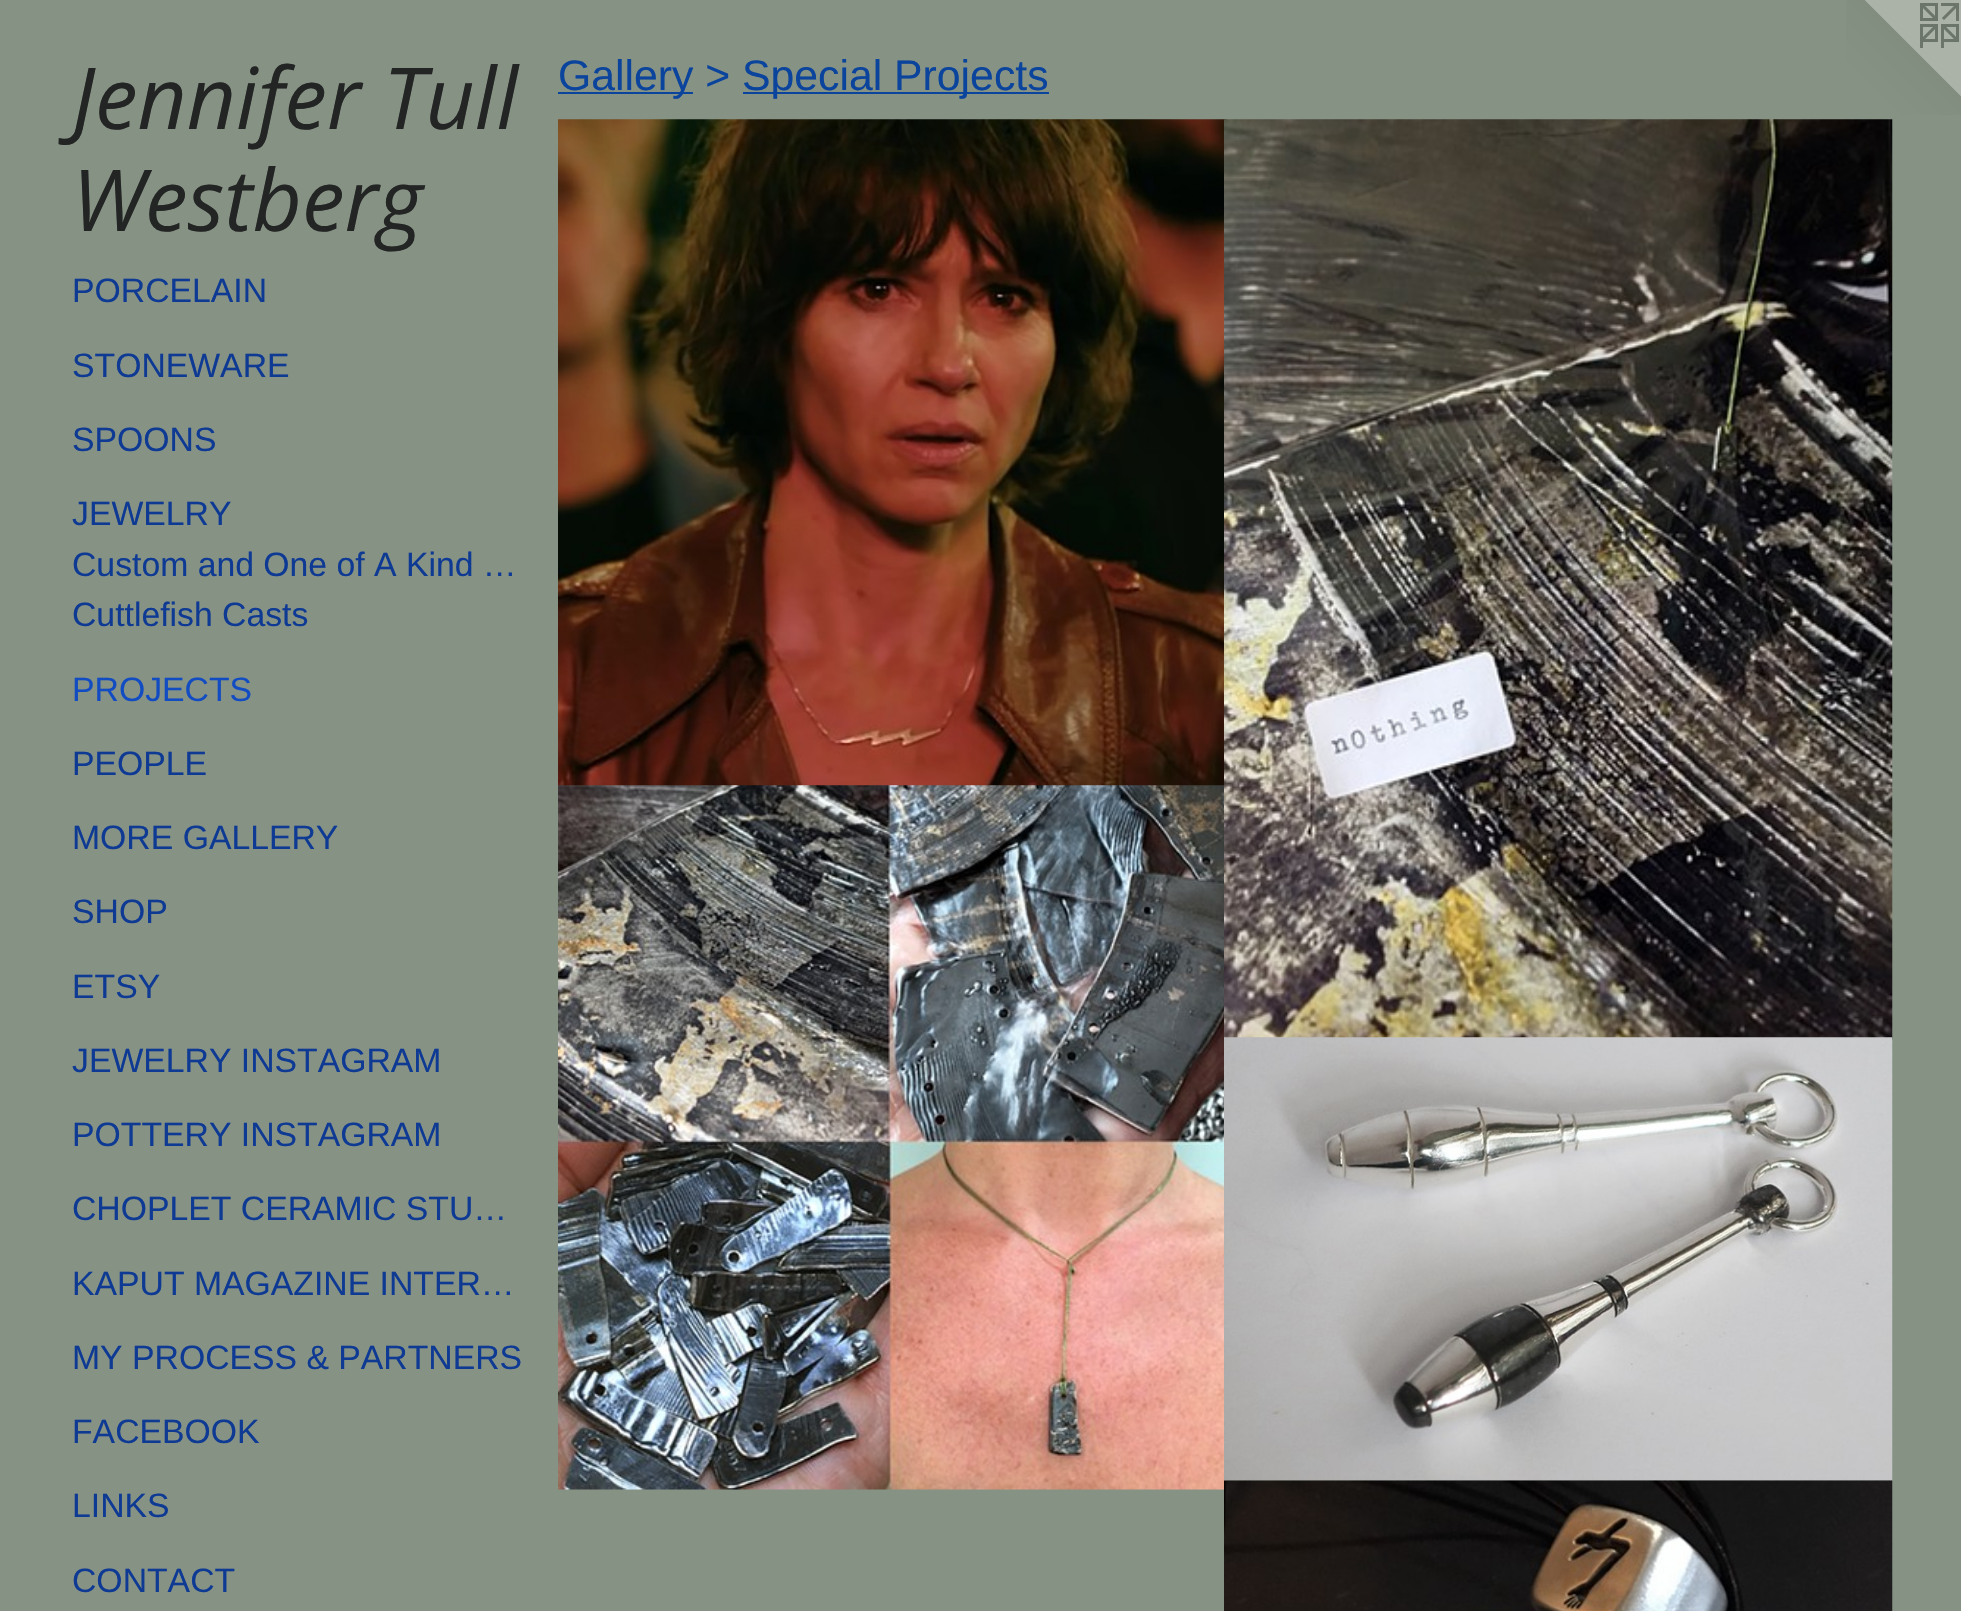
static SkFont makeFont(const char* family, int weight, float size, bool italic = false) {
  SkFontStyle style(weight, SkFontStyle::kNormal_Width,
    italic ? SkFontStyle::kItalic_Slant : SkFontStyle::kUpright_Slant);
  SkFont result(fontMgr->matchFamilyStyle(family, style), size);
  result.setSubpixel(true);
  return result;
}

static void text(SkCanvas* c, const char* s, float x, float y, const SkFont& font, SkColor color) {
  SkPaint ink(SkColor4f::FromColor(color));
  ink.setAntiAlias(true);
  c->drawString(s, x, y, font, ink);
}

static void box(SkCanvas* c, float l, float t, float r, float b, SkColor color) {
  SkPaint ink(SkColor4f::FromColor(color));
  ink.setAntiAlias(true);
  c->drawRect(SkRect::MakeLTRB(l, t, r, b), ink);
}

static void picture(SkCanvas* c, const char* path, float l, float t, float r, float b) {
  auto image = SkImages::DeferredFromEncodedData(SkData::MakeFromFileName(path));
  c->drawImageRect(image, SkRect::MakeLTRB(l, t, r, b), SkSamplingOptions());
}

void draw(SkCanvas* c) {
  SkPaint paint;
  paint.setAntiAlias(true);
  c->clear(0xff869284);
  SkFont face1 = makeFont("Open Sans", 400, 85.5f, true);
  text(c, "Jennifer Tull", 72, 129, face1, 0xff232424);
  text(c, "Westberg", 72, 231, face1, 0xff232424);
  SkFont face2 = makeFont("Arimo", 400, 33.75f);
  text(c, "PORCELAIN", 72, 302, face2, 0xff0e3a94);
  text(c, "STONEWARE", 72, 377, face2, 0xff0e3a94);
  text(c, "SPOONS", 72, 451, face2, 0xff0e3a94);
  text(c, "JEWELRY", 72, 525, face2, 0xff0e3a94);
  text(c, "Custom and One of A Kind …", 72, 576, face2, 0xff0e3a94);
  text(c, "Cuttlefish Casts", 72, 626, face2, 0xff0e3a94);
  text(c, "PROJECTS", 72, 701, face2, 0xff124cc3);
  text(c, "PEOPLE", 72, 775, face2, 0xff0e3a94);
  text(c, "MORE GALLERY", 72, 849, face2, 0xff0e3a94);
  text(c, "SHOP", 72, 923, face2, 0xff0e3a94);
  text(c, "ETSY", 72, 998, face2, 0xff0e3a94);
  text(c, "JEWELRY INSTAGRAM", 72, 1072, face2, 0xff0e3a94);
  text(c, "POTTERY INSTAGRAM", 72, 1146, face2, 0xff0e3a94);
  text(c, "CHOPLET CERAMIC STU…", 72, 1220, face2, 0xff0e3a94);
  text(c, "KAPUT MAGAZINE INTER…", 72, 1295, face2, 0xff0e3a94);
  text(c, "MY PROCESS & PARTNERS", 72, 1369, face2, 0xff0e3a94);
  text(c, "FACEBOOK", 72, 1443, face2, 0xff0e3a94);
  text(c, "LINKS", 72, 1517, face2, 0xff0e3a94);
  text(c, "CONTACT", 72, 1592, face2, 0xff0e3a94);
  box(c, 558, 92, 693, 94, 0xff0b449c);
  SkFont face3 = makeFont("Arimo", 400, 42.75f);
  text(c, "Gallery >", 558, 90, face3, 0xff0b449c);
  box(c, 743, 92, 1049, 94, 0xff0b449c);
  text(c, "Special Projects", 742, 90, face3, 0xff0b449c);
  picture(c, "img_01.png", 558, 119, 1227, 786);
  picture(c, "img_03.png", 558, 785, 1227, 1490);
  picture(c, "img_02.png", 1224, 119, 1893, 1040);
  picture(c, "img_04.png", 1224, 1037, 1893, 1481);
  picture(c, "img_05.png", 1224, 1480, 1893, 1611);
  picture(c, "img_06.png", 1846, 0, 1961, 115);
}
